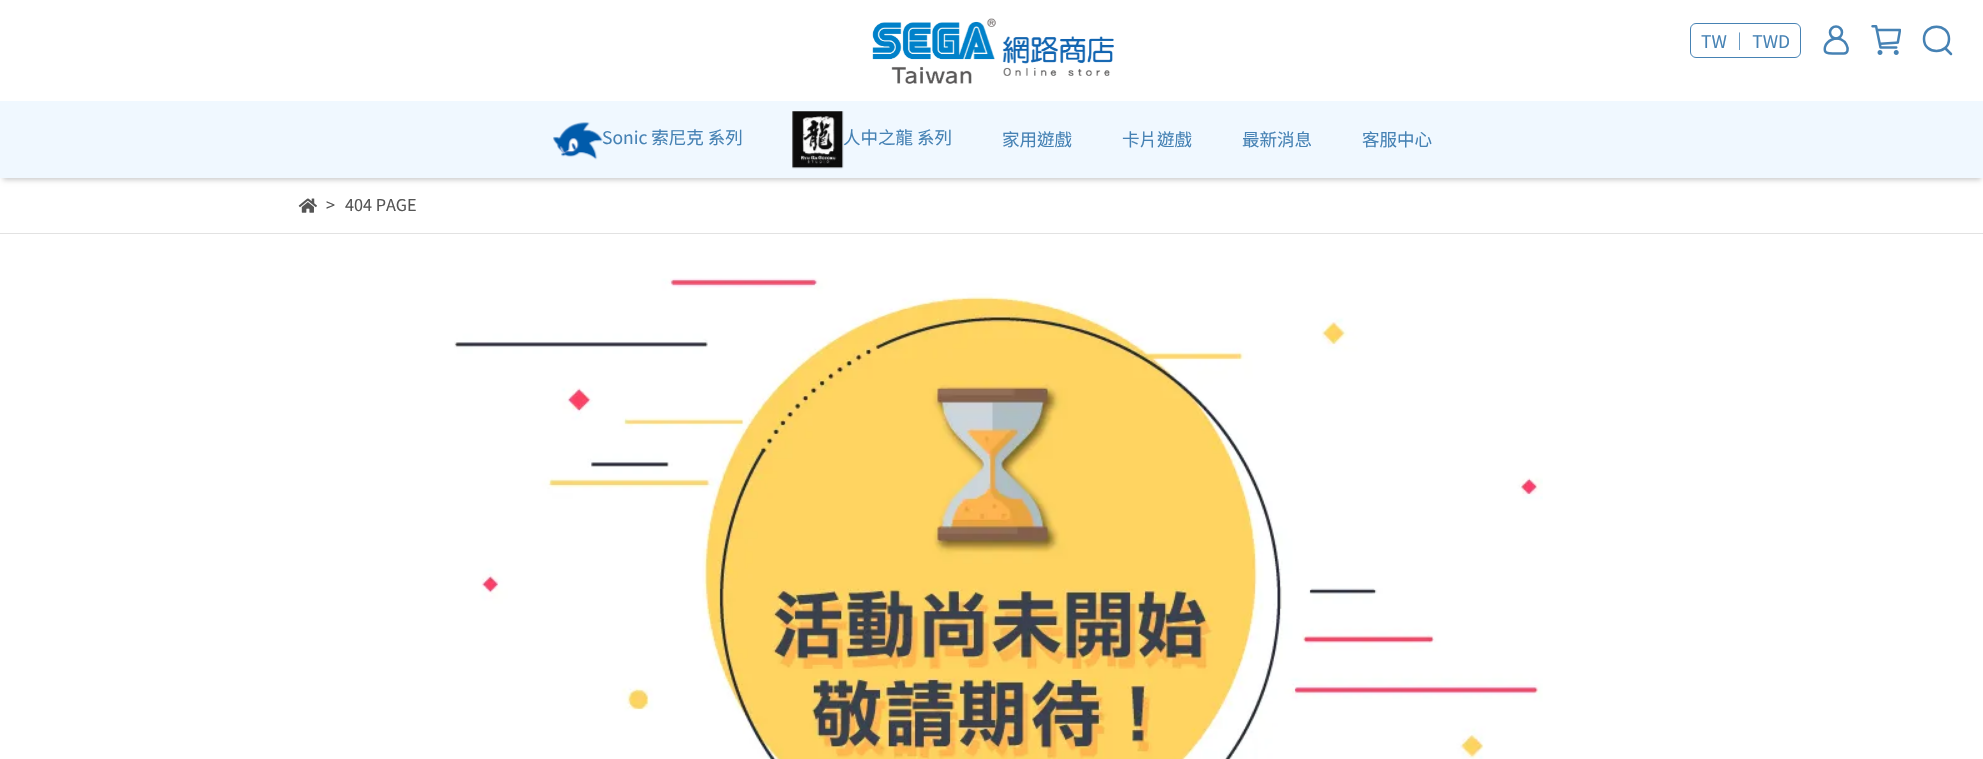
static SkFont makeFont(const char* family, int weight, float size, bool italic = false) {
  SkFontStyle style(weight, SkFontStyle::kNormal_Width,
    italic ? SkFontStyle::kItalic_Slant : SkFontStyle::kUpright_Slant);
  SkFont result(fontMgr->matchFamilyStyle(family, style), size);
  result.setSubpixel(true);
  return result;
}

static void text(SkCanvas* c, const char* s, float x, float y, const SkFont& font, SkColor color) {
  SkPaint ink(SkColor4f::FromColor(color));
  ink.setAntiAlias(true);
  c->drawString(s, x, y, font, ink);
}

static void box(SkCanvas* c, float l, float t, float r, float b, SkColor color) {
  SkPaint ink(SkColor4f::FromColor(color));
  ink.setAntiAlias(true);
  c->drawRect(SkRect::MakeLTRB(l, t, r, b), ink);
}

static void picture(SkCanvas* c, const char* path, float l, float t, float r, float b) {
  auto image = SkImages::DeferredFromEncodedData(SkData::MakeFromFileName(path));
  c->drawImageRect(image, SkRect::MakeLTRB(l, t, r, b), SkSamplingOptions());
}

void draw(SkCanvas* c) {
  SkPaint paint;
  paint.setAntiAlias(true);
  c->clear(0xffffffff);
  picture(c, "img_01.png", 872, 18, 1114, 84);
  paint.setStyle(SkPaint::kStroke_Style);
  paint.setStrokeWidth(1);
  paint.setColor(0xff4682b4);
  c->drawRoundRect(SkRect::MakeLTRB(1690.5f, 23.5f, 1800.5f, 57.5f), 5.5f, 5.5f, paint);
  SkFont face1 = makeFont("Noto Sans TC", 400, 17.5f);
  text(c, "TW ｜ TWD", 1701, 48, face1, 0xff4682b4);
  paint.setStrokeWidth(2.5f);
  c->drawCircle(1836, 32.5f, 6, paint);
  c->drawPath(SkPathBuilder().moveTo(1843.5f, 53.5f).lineTo(1834, 53.5f).cubicTo(1828.5f, 53.5f, 1823.5f, 54, 1825, 47).cubicTo(1826, 43.5f, 1828.5f, 41, 1832, 39.5f).cubicTo(1846, 34, 1852.5f, 54, 1843.5f, 53.5f).close().detach(), paint);
  picture(c, "img_02.png", 1871, 25, 1901, 55);
  paint.setStrokeCap(SkPaint::kRound_Cap);
  paint.setStrokeJoin(SkPaint::kRound_Join);
  c->drawPath(SkPathBuilder().moveTo(1949, 39).cubicTo(1949, 55, 1924, 55, 1924, 39).cubicTo(1924, 22.5f, 1949, 22.5f, 1949, 39).close().moveTo(1946, 49).lineTo(1951, 54).detach(), paint);
  paint.setStyle(SkPaint::kFill_Style);
  paint.setColor(0x33000000);
  paint.setMaskFilter(SkMaskFilter::MakeBlur(kNormal_SkBlurStyle, 2.5f));
  c->drawRect(SkRect::MakeLTRB(3, 109, 1981, 180), paint);
  paint.setMaskFilter(nullptr);
  box(c, 0, 101, 1983, 178, 0xfff0f8ff);
  picture(c, "img_03.png", 553, 122, 603, 160);
  text(c, "Sonic 索尼克 系列", 602, 144, face1, 0xff4682b4);
  picture(c, "img_04.png", 792, 111, 844, 169);
  text(c, "人中之龍 系列", 843, 144, face1, 0xff4682b4);
  text(c, "家用遊戲", 1002, 146, face1, 0xff4682b4);
  text(c, "卡片遊戲", 1122, 146, face1, 0xff4682b4);
  text(c, "最新消息", 1242, 146, face1, 0xff4682b4);
  text(c, "客服中心", 1362, 146, face1, 0xff4682b4);
  box(c, 0, 233, 1983, 234, 0xffe2e2e2);
  picture(c, "img_05.png", 298, 198, 317, 213);
  SkFont face2 = makeFont("Noto Sans TC", 400, 16.25f);
  text(c, ">", 326, 211, face2, 0xff555555);
  text(c, "404 PAGE", 345, 211, face2, 0xff555555);
  picture(c, "img_06.png", 454, 278, 1543, 759);
}
